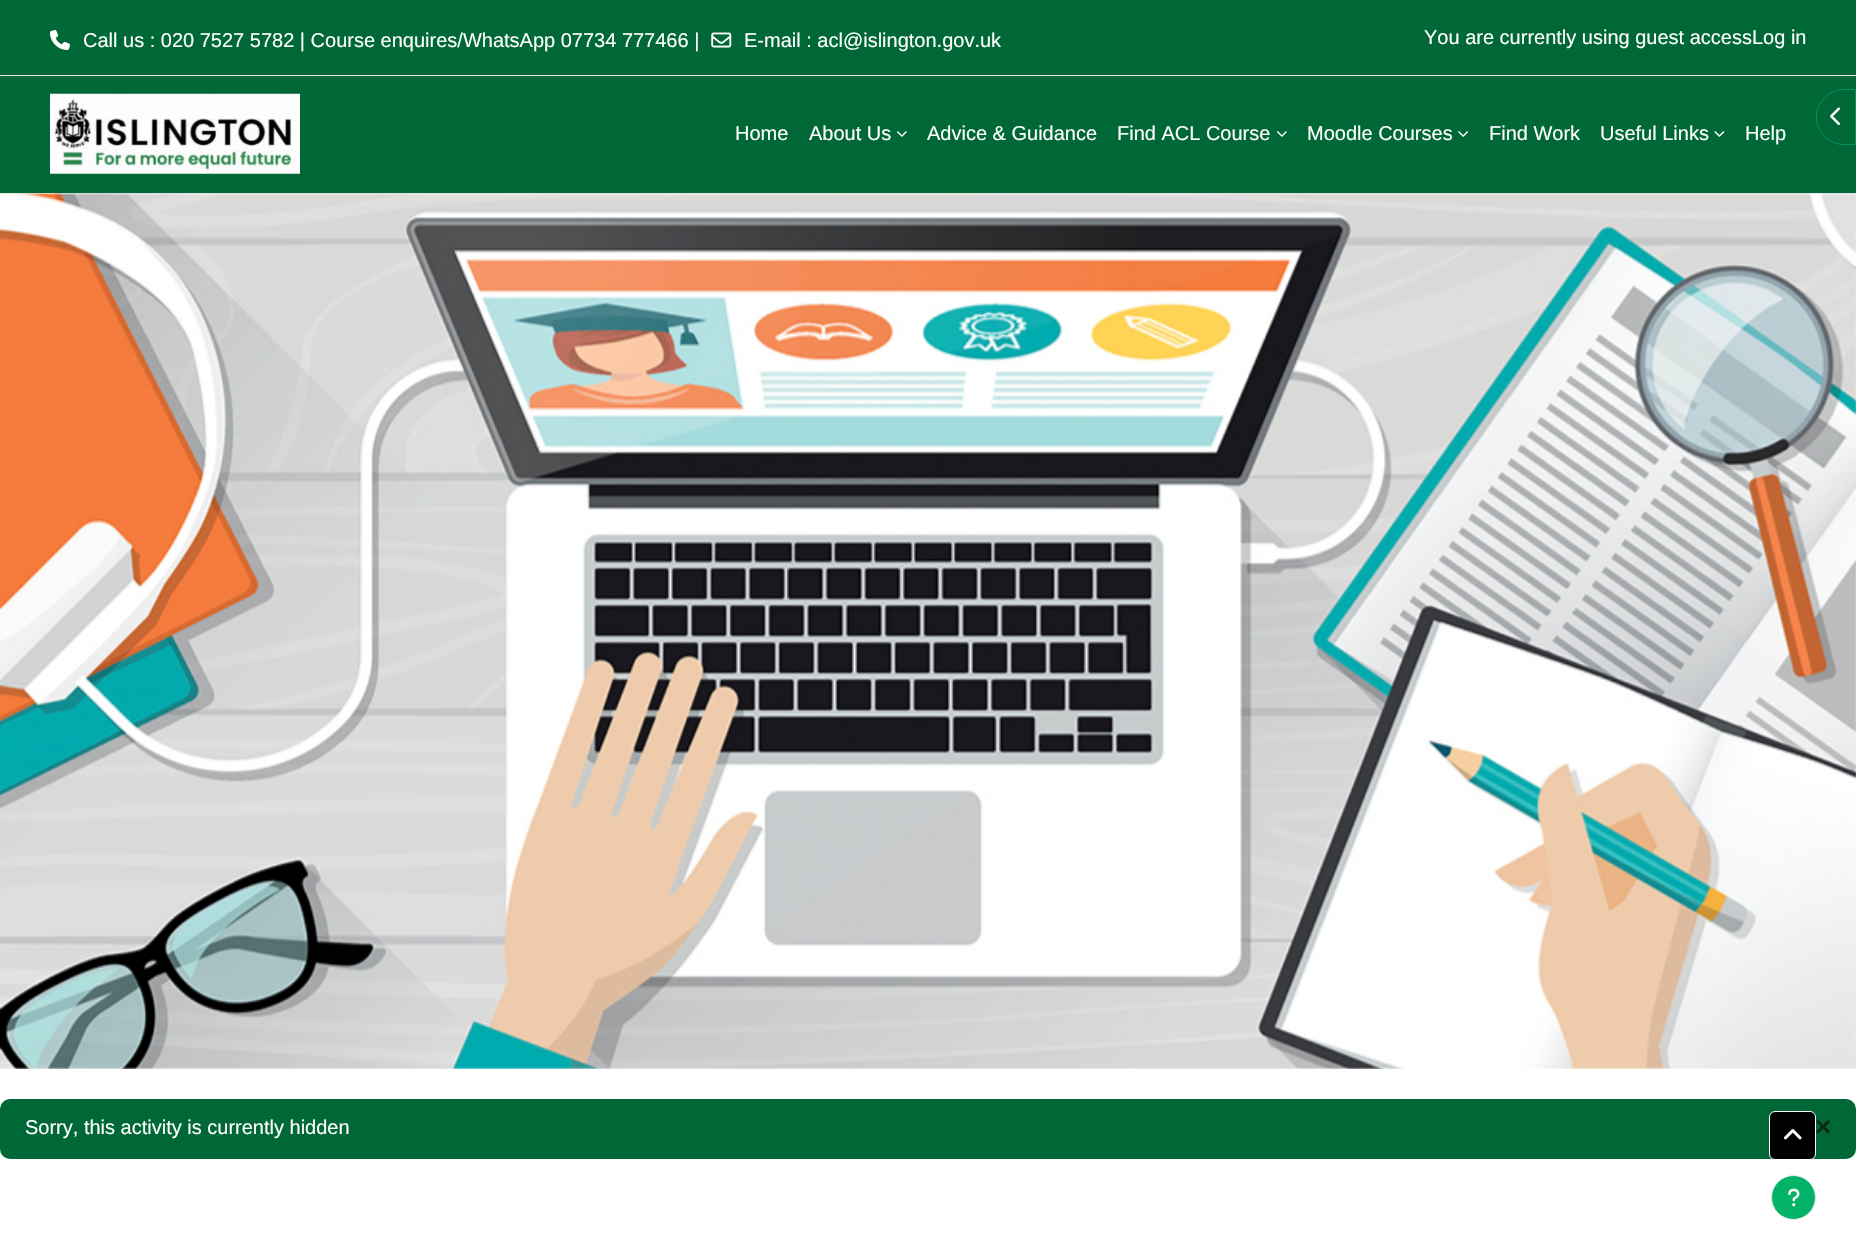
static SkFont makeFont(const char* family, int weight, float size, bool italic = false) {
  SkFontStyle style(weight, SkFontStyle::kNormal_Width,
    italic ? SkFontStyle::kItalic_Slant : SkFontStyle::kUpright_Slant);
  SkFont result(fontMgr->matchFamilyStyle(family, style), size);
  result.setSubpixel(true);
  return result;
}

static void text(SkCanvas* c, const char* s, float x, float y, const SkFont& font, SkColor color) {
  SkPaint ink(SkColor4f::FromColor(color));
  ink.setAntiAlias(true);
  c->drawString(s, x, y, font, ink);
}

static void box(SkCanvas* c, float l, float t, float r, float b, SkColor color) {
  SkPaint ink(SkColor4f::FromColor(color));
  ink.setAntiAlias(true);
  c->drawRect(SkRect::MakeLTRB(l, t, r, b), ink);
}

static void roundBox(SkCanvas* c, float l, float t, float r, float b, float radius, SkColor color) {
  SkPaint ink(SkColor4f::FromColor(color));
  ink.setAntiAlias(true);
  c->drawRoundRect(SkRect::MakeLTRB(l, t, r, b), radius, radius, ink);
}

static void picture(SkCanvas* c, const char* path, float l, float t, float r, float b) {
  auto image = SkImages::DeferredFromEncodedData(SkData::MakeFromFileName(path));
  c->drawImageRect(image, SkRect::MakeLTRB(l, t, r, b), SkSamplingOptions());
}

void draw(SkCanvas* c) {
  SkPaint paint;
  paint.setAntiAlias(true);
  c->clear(0xffffffff);
  box(c, 0, 0, 1856, 75, 0xff006736);
  box(c, 0, 75, 1856, 76, 0xffe8e3e3);
  picture(c, "img_01.png", 50, 30, 70, 50);
  SkFont face1 = makeFont("Liberation Sans", 400, 20);
  text(c, "Call us : 020 7527 5782 | Course enquires/WhatsApp 07734 777466 |", 83, 47, face1, 0xffffffff);
  picture(c, "img_02.png", 711, 32, 732, 48);
  text(c, "E-mail : acl@islington.gov.uk", 744, 47, face1, 0xffffffff);
  text(c, "You are currently using guest accessLog in", 1424, 44, face1, 0xffffffff);
  box(c, 0, 76, 1856, 193, 0xff006736);
  box(c, 0, 193, 1856, 194, 0xffe8e3e3);
  picture(c, "img_03.png", 50, 93, 300, 174);
  text(c, "Home", 735, 140, face1, 0xffffffff);
  text(c, "About Us", 809, 140, face1, 0xffffffff);
  picture(c, "img_04.png", 897, 131, 907, 137);
  text(c, "Advice & Guidance", 927, 140, face1, 0xffffffff);
  text(c, "Find ACL Course", 1117, 140, face1, 0xffffffff);
  picture(c, "img_04.png", 1277, 131, 1287, 137);
  text(c, "Moodle Courses", 1307, 140, face1, 0xffffffff);
  picture(c, "img_05.png", 1458, 131, 1468, 137);
  text(c, "Find Work", 1489, 140, face1, 0xffffffff);
  text(c, "Useful Links", 1600, 140, face1, 0xffffffff);
  picture(c, "img_06.png", 1714, 131, 1725, 137);
  text(c, "Help", 1745, 140, face1, 0xffffffff);
  picture(c, "img_07.png", 0, 193, 1856, 1069);
  roundBox(c, 0, 1099, 1856, 1159, 10, 0xff006736);
  paint.setColor(0xff000000);
  c->drawRoundRect(SkRect::MakeLTRB(1769.5f, 1111.5f, 1815.5f, 1159.5f), 5.5f, 5.5f, paint);
  paint.setStyle(SkPaint::kStroke_Style);
  paint.setStrokeWidth(1);
  paint.setColor(0xffffffff);
  c->drawRoundRect(SkRect::MakeLTRB(1769.5f, 1111.5f, 1815.5f, 1159.5f), 5.5f, 5.5f, paint);
  picture(c, "img_08.png", 1784, 1129, 1802, 1140);
  paint.setColor(0xff039660);
  c->drawPath(SkPathBuilder().moveTo(1844, 89.5f).lineTo(1855.5f, 89.5f).lineTo(1855.5f, 144.5f).lineTo(1844, 144.5f).cubicTo(1829, 144.5f, 1816.5f, 132, 1816.5f, 117).cubicTo(1816.5f, 102, 1829, 89.5f, 1844, 89.5f).close().detach(), paint);
  picture(c, "img_09.png", 1830, 107, 1840, 125);
  text(c, "Sorry, this activity is currently hidden", 25, 1134, face1, 0xffffffff);
  SkFont face2 = makeFont("Liberation Sans", 700, 28);
  text(c, "×", 1815, 1136, face2, 0xff0a2c17);
  paint.setStyle(SkPaint::kFill_Style);
  paint.setColor(0xff03b468);
  c->drawCircle(1793.5f, 1197.5f, 22, paint);
  paint.setStyle(SkPaint::kStroke_Style);
  paint.setColor(0xffeeeeee);
  c->drawCircle(1793.5f, 1197.5f, 22, paint);
  picture(c, "img_10.png", 1788, 1188, 1800, 1207);
}
